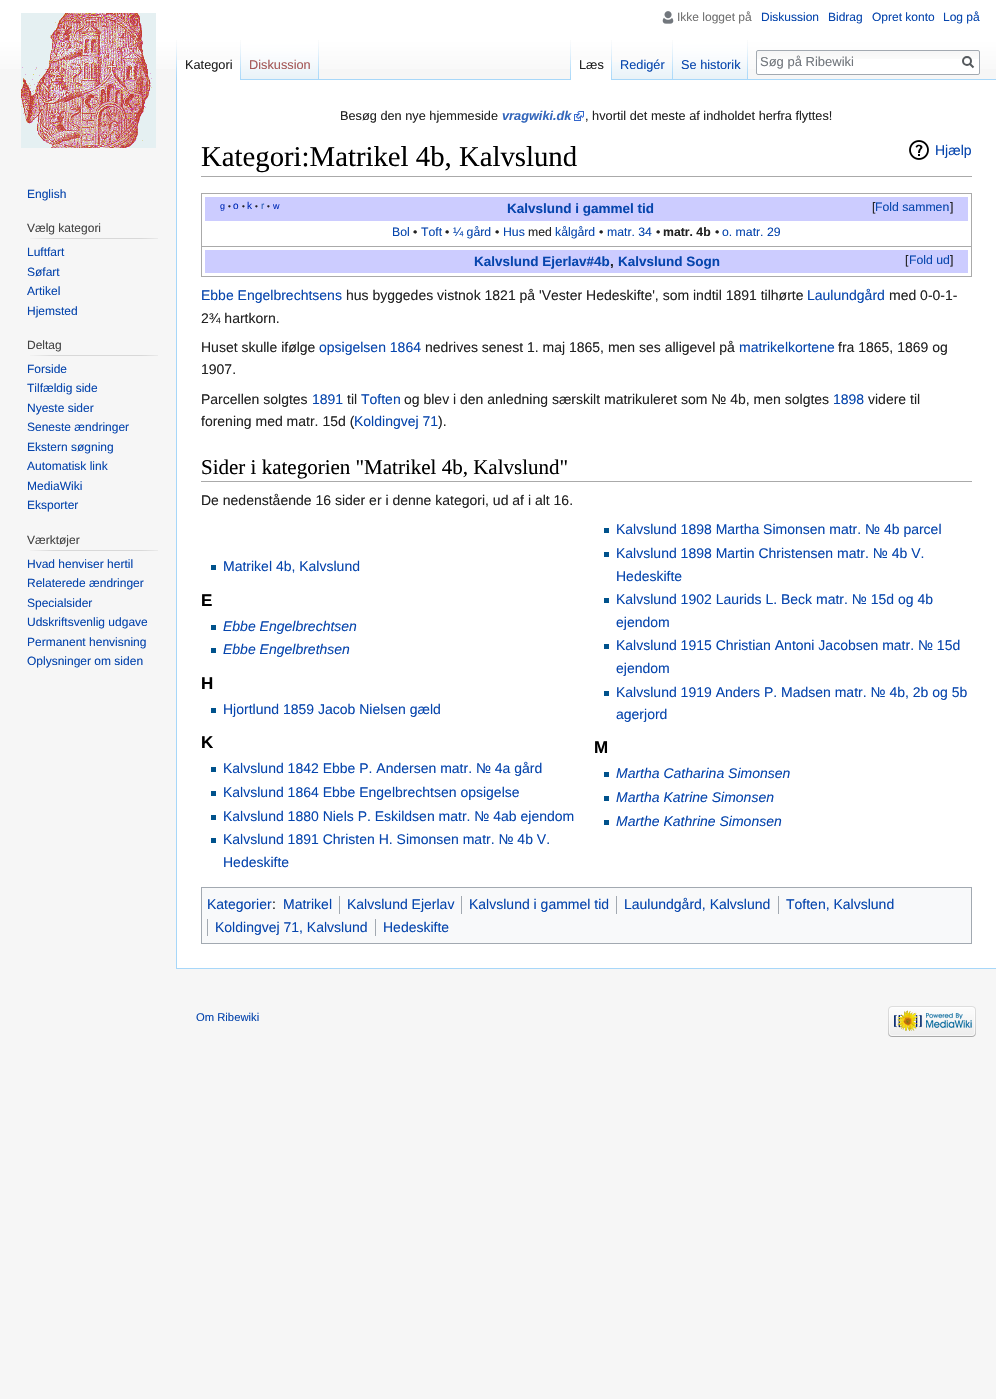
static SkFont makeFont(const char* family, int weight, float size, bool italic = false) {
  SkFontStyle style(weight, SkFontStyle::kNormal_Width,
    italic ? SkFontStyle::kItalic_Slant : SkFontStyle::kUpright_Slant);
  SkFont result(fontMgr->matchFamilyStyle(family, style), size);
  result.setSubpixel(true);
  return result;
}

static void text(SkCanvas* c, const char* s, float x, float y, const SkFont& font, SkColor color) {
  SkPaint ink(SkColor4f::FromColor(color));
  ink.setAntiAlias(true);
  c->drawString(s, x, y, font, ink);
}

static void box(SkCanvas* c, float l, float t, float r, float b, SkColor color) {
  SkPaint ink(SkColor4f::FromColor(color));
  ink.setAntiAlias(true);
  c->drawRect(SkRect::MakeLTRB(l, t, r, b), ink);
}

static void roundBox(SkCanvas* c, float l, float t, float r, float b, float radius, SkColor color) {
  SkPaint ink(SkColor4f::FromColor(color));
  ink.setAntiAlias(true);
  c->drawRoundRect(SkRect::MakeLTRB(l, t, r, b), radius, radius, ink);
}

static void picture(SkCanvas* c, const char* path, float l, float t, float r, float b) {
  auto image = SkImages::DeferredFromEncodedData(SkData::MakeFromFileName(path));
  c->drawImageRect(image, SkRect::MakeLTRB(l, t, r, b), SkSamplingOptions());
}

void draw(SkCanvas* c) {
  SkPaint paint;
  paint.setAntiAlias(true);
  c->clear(0xfff6f6f6);
  {
    const SkColor colors[] = {0xffffffff, 0xfff6f6f6};
    const float stops[] = {0.5f, 1};
    const SkPoint ends[] = {{498, 0}, {498, 80}};
    paint.setShader(SkGradientShader::MakeLinear(ends, colors, stops, 2, SkTileMode::kClamp));
    paint.setAlpha(255);
  }
  c->drawRect(SkRect::MakeLTRB(0, 0, 996, 69), paint);
  picture(c, "img_01.png", 662, 11, 674, 24);
  SkFont face1 = makeFont("Liberation Sans", 400, 12);
  text(c, "Ikke logget på", 677, 21, face1, 0xff707070);
  text(c, "Diskussion", 761, 21, face1, 0xff0645ad);
  text(c, "Bidrag", 828, 21, face1, 0xff0645ad);
  text(c, "Opret konto", 872, 21, face1, 0xff0645ad);
  text(c, "Log på", 943, 21, face1, 0xff0645ad);
  picture(c, "img_02.png", 176, 40, 177, 79);
  box(c, 177, 60, 240, 80, 0xffffffff);
  picture(c, "img_03.png", 240, 40, 241, 80);
  SkFont face2 = makeFont("Liberation Sans", 400, 12.75f);
  text(c, "Kategori", 185, 69, face2, 0xff222222);
  picture(c, "img_04.png", 241, 40, 318, 79);
  picture(c, "img_02.png", 318, 40, 319, 79);
  text(c, "Diskussion", 249, 69, face2, 0xffa55858);
  picture(c, "img_02.png", 570, 40, 571, 79);
  box(c, 241, 79, 996, 80, 0xffa7d7f9);
  box(c, 571, 60, 611, 80, 0xffffffff);
  picture(c, "img_03.png", 611, 40, 612, 80);
  text(c, "Læs", 579, 69, face2, 0xff222222);
  picture(c, "img_05.png", 612, 62, 672, 79);
  picture(c, "img_02.png", 672, 40, 673, 79);
  text(c, "Redigér", 620, 69, face2, 0xff0645ad);
  picture(c, "img_06.png", 673, 40, 747, 79);
  picture(c, "img_02.png", 747, 40, 748, 79);
  text(c, "Se historik", 681, 69, face2, 0xff0645ad);
  roundBox(c, 756, 50, 980, 75, 2, 0xffffffff);
  picture(c, "img_07.png", 756, 51, 980, 59);
  paint.setStyle(SkPaint::kStroke_Style);
  paint.setStrokeWidth(1);
  paint.setShader(nullptr);
  paint.setColor(0xffa2a9b1);
  c->drawRoundRect(SkRect::MakeLTRB(756.5f, 50.5f, 979.5f, 74.5f), 1.5f, 1.5f, paint);
  SkFont face3 = makeFont("Liberation Sans", 400, 13);
  text(c, "Søg på Ribewiki", 760, 66, face3, 0xff72777d);
  paint.setStrokeWidth(2);
  paint.setColor(0xff54595d);
  c->drawPath(SkPathBuilder().moveTo(973.5f, 67.5f).lineTo(969.5f, 63.5f).detach(), paint);
  c->drawCircle(967, 61, 4, paint);
  picture(c, "img_08.png", 21, 13, 156, 148);
  text(c, "English", 27, 198, face1, 0xff0645ad);
  text(c, "Vælg kategori", 27, 232, face1, 0xff444444);
  picture(c, "img_09.png", 30, 238, 158, 239);
  text(c, "Luftfart", 27, 256, face1, 0xff0645ad);
  text(c, "Søfart", 27, 276, face1, 0xff0645ad);
  text(c, "Artikel", 27, 295, face1, 0xff0645ad);
  text(c, "Hjemsted", 27, 315, face1, 0xff0645ad);
  text(c, "Deltag", 27, 349, face1, 0xff444444);
  picture(c, "img_09.png", 30, 355, 158, 356);
  text(c, "Forside", 27, 373, face1, 0xff0645ad);
  text(c, "Tilfældig side", 27, 392, face1, 0xff0645ad);
  text(c, "Nyeste sider", 27, 412, face1, 0xff0645ad);
  text(c, "Seneste ændringer", 27, 431, face1, 0xff0645ad);
  text(c, "Ekstern søgning", 27, 451, face1, 0xff0645ad);
  text(c, "Automatisk link", 27, 470, face1, 0xff0645ad);
  text(c, "MediaWiki", 27, 490, face1, 0xff0645ad);
  text(c, "Eksporter", 27, 509, face1, 0xff0645ad);
  text(c, "Værktøjer", 27, 544, face1, 0xff444444);
  picture(c, "img_09.png", 30, 550, 158, 551);
  text(c, "Hvad henviser hertil", 27, 568, face1, 0xff0645ad);
  text(c, "Relaterede ændringer", 27, 587, face1, 0xff0645ad);
  text(c, "Specialsider", 27, 607, face1, 0xff0645ad);
  text(c, "Udskriftsvenlig udgave", 27, 626, face1, 0xff0645ad);
  text(c, "Permanent henvisning", 27, 646, face1, 0xff0645ad);
  text(c, "Oplysninger om siden", 27, 665, face1, 0xff0645ad);
  box(c, 177, 80, 996, 968, 0xffffffff);
  box(c, 176, 968, 996, 969, 0xffa7d7f9);
  box(c, 176, 79, 177, 969, 0xffa7d7f9);
  text(c, "Besøg den nye hjemmeside", 340, 120, face2, 0xff222222);
  SkFont face4 = makeFont("Liberation Sans", 700, 12.75f, true);
  text(c, "vragwiki.dk", 502, 120, face4, 0xff3366bb);
  picture(c, "img_10.png", 574, 111, 584, 121);
  text(c, ", hvortil det meste af indholdet herfra flyttes!", 585, 120, face2, 0xff222222);
  box(c, 201, 176, 972, 177, 0xffaaaaaa);
  SkFont face5 = makeFont("Liberation Serif", 400, 28.75f);
  text(c, "Kategori:Matrikel 4b, Kalvslund", 201, 166, face5, 0xff000000);
  picture(c, "img_11.png", 909, 140, 929, 160);
  SkFont face6 = makeFont("Liberation Sans", 400, 14);
  text(c, "Hjælp", 935, 155, face6, 0xff0645ad);
  paint.setStrokeWidth(1);
  paint.setColor(0xffaaaaaa);
  c->drawRect(SkRect::MakeLTRB(201.5f, 193.5f, 971.5f, 246.5f), paint);
  box(c, 205, 197, 968, 221, 0xffccccff);
  SkFont face7 = makeFont("Liberation Sans", 400, 9);
  text(c, "g", 220, 209, face7, 0xff002bb8);
  SkFont face8 = makeFont("Liberation Sans", 400, 8);
  text(c, "•", 228, 209, face8, 0xff222222);
  SkFont face9 = makeFont("Liberation Sans", 400, 10);
  text(c, "o", 233, 209, face9, 0xff002bb8);
  text(c, "•", 242, 209, face8, 0xff222222);
  text(c, "k", 247, 209, face9, 0xff002bb8);
  text(c, "•", 255, 209, face8, 0xff222222);
  text(c, "r", 261, 209, face9, 0xff3366bb);
  text(c, "•", 267, 209, face8, 0xff222222);
  text(c, "w", 273, 209, face7, 0xff002bb8);
  SkFont face10 = makeFont("Liberation Sans", 700, 13.5f);
  text(c, "Kalvslund i gammel tid", 507, 213, face10, 0xff0645ad);
  SkFont face11 = makeFont("Liberation Sans", 400, 12.25f);
  text(c, "[", 872, 211, face11, 0xff222222);
  text(c, "Fold sammen", 875, 211, face11, 0xff0645ad);
  text(c, "]", 950, 211, face11, 0xff222222);
  text(c, "Bol", 392, 236, face11, 0xff0645ad);
  text(c, "•", 413, 236, face11, 0xff222222);
  text(c, "Toft", 421, 236, face11, 0xff0645ad);
  text(c, "•", 445, 236, face11, 0xff222222);
  text(c, "¼ gård", 453, 236, face11, 0xff0645ad);
  text(c, "•", 495, 236, face11, 0xff222222);
  text(c, "Hus", 503, 236, face11, 0xff0645ad);
  text(c, "med", 528, 236, face11, 0xff222222);
  text(c, "kålgård", 555, 236, face11, 0xff0645ad);
  text(c, "•", 599, 236, face11, 0xff222222);
  text(c, "matr. 34", 607, 236, face11, 0xff0645ad);
  text(c, "•", 656, 236, face11, 0xff222222);
  SkFont face12 = makeFont("Liberation Sans", 700, 12.25f);
  text(c, "matr. 4b", 663, 236, face12, 0xff222222);
  text(c, "•", 715, 236, face11, 0xff222222);
  text(c, "o. matr. 29", 722, 236, face11, 0xff0645ad);
  c->drawRect(SkRect::MakeLTRB(201.5f, 246.5f, 971.5f, 276.5f), paint);
  box(c, 205, 250, 968, 273, 0xffccccff);
  text(c, "Kalvslund Ejerlav#4b", 474, 266, face10, 0xff0645ad);
  text(c, ",", 610, 266, face10, 0xff222222);
  text(c, "Kalvslund Sogn", 618, 266, face10, 0xff0645ad);
  text(c, "[", 905, 264, face11, 0xff222222);
  text(c, "Fold ud", 909, 264, face11, 0xff0645ad);
  text(c, "]", 950, 264, face11, 0xff222222);
  text(c, "Ebbe Engelbrechtsens", 201, 300, face6, 0xff0645ad);
  text(c, "hus byggedes vistnok 1821 på 'Vester Hedeskifte', som indtil 1891 tilhørte", 346, 300, face6, 0xff222222);
  text(c, "Laulundgård", 807, 300, face6, 0xff0645ad);
  text(c, "med 0-0-1-", 889, 300, face6, 0xff222222);
  text(c, "2¾ hartkorn.", 201, 323, face6, 0xff222222);
  text(c, "Huset skulle ifølge", 201, 352, face6, 0xff222222);
  text(c, "opsigelsen 1864", 319, 352, face6, 0xff0645ad);
  text(c, "nedrives senest 1. maj 1865, men ses alligevel på", 425, 352, face6, 0xff222222);
  text(c, "matrikelkortene", 739, 352, face6, 0xff0645ad);
  text(c, "fra 1865, 1869 og", 838, 352, face6, 0xff222222);
  text(c, "1907.", 201, 374, face6, 0xff222222);
  text(c, "Parcellen solgtes", 201, 404, face6, 0xff222222);
  text(c, "1891", 312, 404, face6, 0xff0645ad);
  text(c, "til", 347, 404, face6, 0xff222222);
  text(c, "Toften", 361, 404, face6, 0xff0645ad);
  text(c, "og blev i den anledning særskilt matrikuleret som № 4b, men solgtes", 404, 404, face6, 0xff222222);
  text(c, "1898", 833, 404, face6, 0xff0645ad);
  text(c, "videre til", 868, 404, face6, 0xff222222);
  text(c, "forening med matr. 15d (", 201, 426, face6, 0xff222222);
  text(c, "Koldingvej 71", 354, 426, face6, 0xff0645ad);
  text(c, ").", 438, 426, face6, 0xff222222);
  box(c, 201, 481, 972, 482, 0xffaaaaaa);
  SkFont face13 = makeFont("Liberation Serif", 400, 21);
  text(c, "Sider i kategorien \"Matrikel 4b, Kalvslund\"", 201, 474, face13, 0xff000000);
  text(c, "De nedenstående 16 sider er i denne kategori, ud af i alt 16.", 201, 505, face6, 0xff222222);
  SkFont face14 = makeFont("Liberation Sans", 700, 17);
  text(c, "K", 201, 748, face14, 0xff000000);
  box(c, 604, 528, 609, 533, 0xff00528c);
  text(c, "Kalvslund 1898 Martha Simonsen matr. № 4b parcel", 616, 534, face6, 0xff0645ad);
  box(c, 604, 552, 609, 557, 0xff00528c);
  text(c, "Kalvslund 1898 Martin Christensen matr. № 4b V.", 616, 558, face6, 0xff0645ad);
  text(c, "Hedeskifte", 616, 581, face6, 0xff0645ad);
  box(c, 604, 598, 609, 603, 0xff00528c);
  text(c, "Kalvslund 1902 Laurids L. Beck matr. № 15d og 4b", 616, 604, face6, 0xff0645ad);
  text(c, "ejendom", 616, 627, face6, 0xff0645ad);
  box(c, 604, 644, 609, 649, 0xff00528c);
  text(c, "Kalvslund 1915 Christian Antoni Jacobsen matr. № 15d", 616, 650, face6, 0xff0645ad);
  text(c, "ejendom", 616, 673, face6, 0xff0645ad);
  box(c, 604, 691, 609, 696, 0xff00528c);
  text(c, "Kalvslund 1919 Anders P. Madsen matr. № 4b, 2b og 5b", 616, 697, face6, 0xff0645ad);
  text(c, "agerjord", 616, 719, face6, 0xff0645ad);
  box(c, 211, 767, 216, 772, 0xff00528c);
  text(c, "Kalvslund 1842 Ebbe P. Andersen matr. № 4a gård", 223, 773, face6, 0xff0645ad);
  box(c, 211, 791, 216, 796, 0xff00528c);
  text(c, "Kalvslund 1864 Ebbe Engelbrechtsen opsigelse", 223, 797, face6, 0xff0645ad);
  box(c, 211, 815, 216, 820, 0xff00528c);
  text(c, "Kalvslund 1880 Niels P. Eskildsen matr. № 4ab ejendom", 223, 821, face6, 0xff0645ad);
  box(c, 211, 838, 216, 843, 0xff00528c);
  text(c, "Kalvslund 1891 Christen H. Simonsen matr. № 4b V.", 223, 844, face6, 0xff0645ad);
  text(c, "Hedeskifte", 223, 867, face6, 0xff0645ad);
  box(c, 211, 565, 216, 570, 0xff00528c);
  text(c, "Matrikel 4b, Kalvslund", 223, 571, face6, 0xff0645ad);
  text(c, "E", 201, 606, face14, 0xff000000);
  box(c, 211, 625, 216, 630, 0xff00528c);
  SkFont face15 = makeFont("Liberation Sans", 400, 14, true);
  text(c, "Ebbe Engelbrechtsen", 223, 631, face15, 0xff0645ad);
  box(c, 211, 648, 216, 653, 0xff00528c);
  text(c, "Ebbe Engelbrethsen", 223, 654, face15, 0xff0645ad);
  text(c, "H", 201, 689, face14, 0xff000000);
  box(c, 211, 708, 216, 713, 0xff00528c);
  text(c, "Hjortlund 1859 Jacob Nielsen gæld", 223, 714, face6, 0xff0645ad);
  text(c, "M", 594, 753, face14, 0xff000000);
  box(c, 604, 772, 609, 777, 0xff00528c);
  text(c, "Martha Catharina Simonsen", 616, 778, face15, 0xff0645ad);
  box(c, 604, 796, 609, 801, 0xff00528c);
  text(c, "Martha Katrine Simonsen", 616, 802, face15, 0xff0645ad);
  box(c, 604, 820, 609, 825, 0xff00528c);
  text(c, "Marthe Kathrine Simonsen", 616, 826, face15, 0xff0645ad);
  paint.setStyle(SkPaint::kFill_Style);
  paint.setColor(0xfff8f9fa);
  c->drawRect(SkRect::MakeLTRB(201.5f, 887.5f, 971.5f, 943.5f), paint);
  paint.setStyle(SkPaint::kStroke_Style);
  paint.setColor(0xffa2a9b1);
  c->drawRect(SkRect::MakeLTRB(201.5f, 887.5f, 971.5f, 943.5f), paint);
  text(c, "Matrikel", 283, 909, face6, 0xff0645ad);
  box(c, 339, 896, 340, 914, 0xffa2a9b1);
  text(c, "Kalvslund Ejerlav", 347, 909, face6, 0xff0645ad);
  box(c, 461, 896, 462, 914, 0xffa2a9b1);
  text(c, "Kalvslund i gammel tid", 469, 909, face6, 0xff0645ad);
  box(c, 616, 896, 617, 914, 0xffa2a9b1);
  text(c, "Laulundgård, Kalvslund", 624, 909, face6, 0xff0645ad);
  box(c, 778, 896, 779, 914, 0xffa2a9b1);
  text(c, "Toften, Kalvslund", 786, 909, face6, 0xff0645ad);
  box(c, 207, 919, 208, 936, 0xffa2a9b1);
  text(c, "Koldingvej 71, Kalvslund", 215, 932, face6, 0xff0645ad);
  box(c, 375, 919, 376, 936, 0xffa2a9b1);
  text(c, "Hedeskifte", 383, 932, face6, 0xff0645ad);
  text(c, "Kategorier", 207, 909, face6, 0xff0645ad);
  text(c, ":", 272, 909, face6, 0xff222222);
  SkFont face16 = makeFont("Liberation Sans", 400, 11.25f);
  text(c, "Om Ribewiki", 196, 1021, face16, 0xff0645ad);
  picture(c, "img_12.png", 888, 1006, 976, 1037);
}
